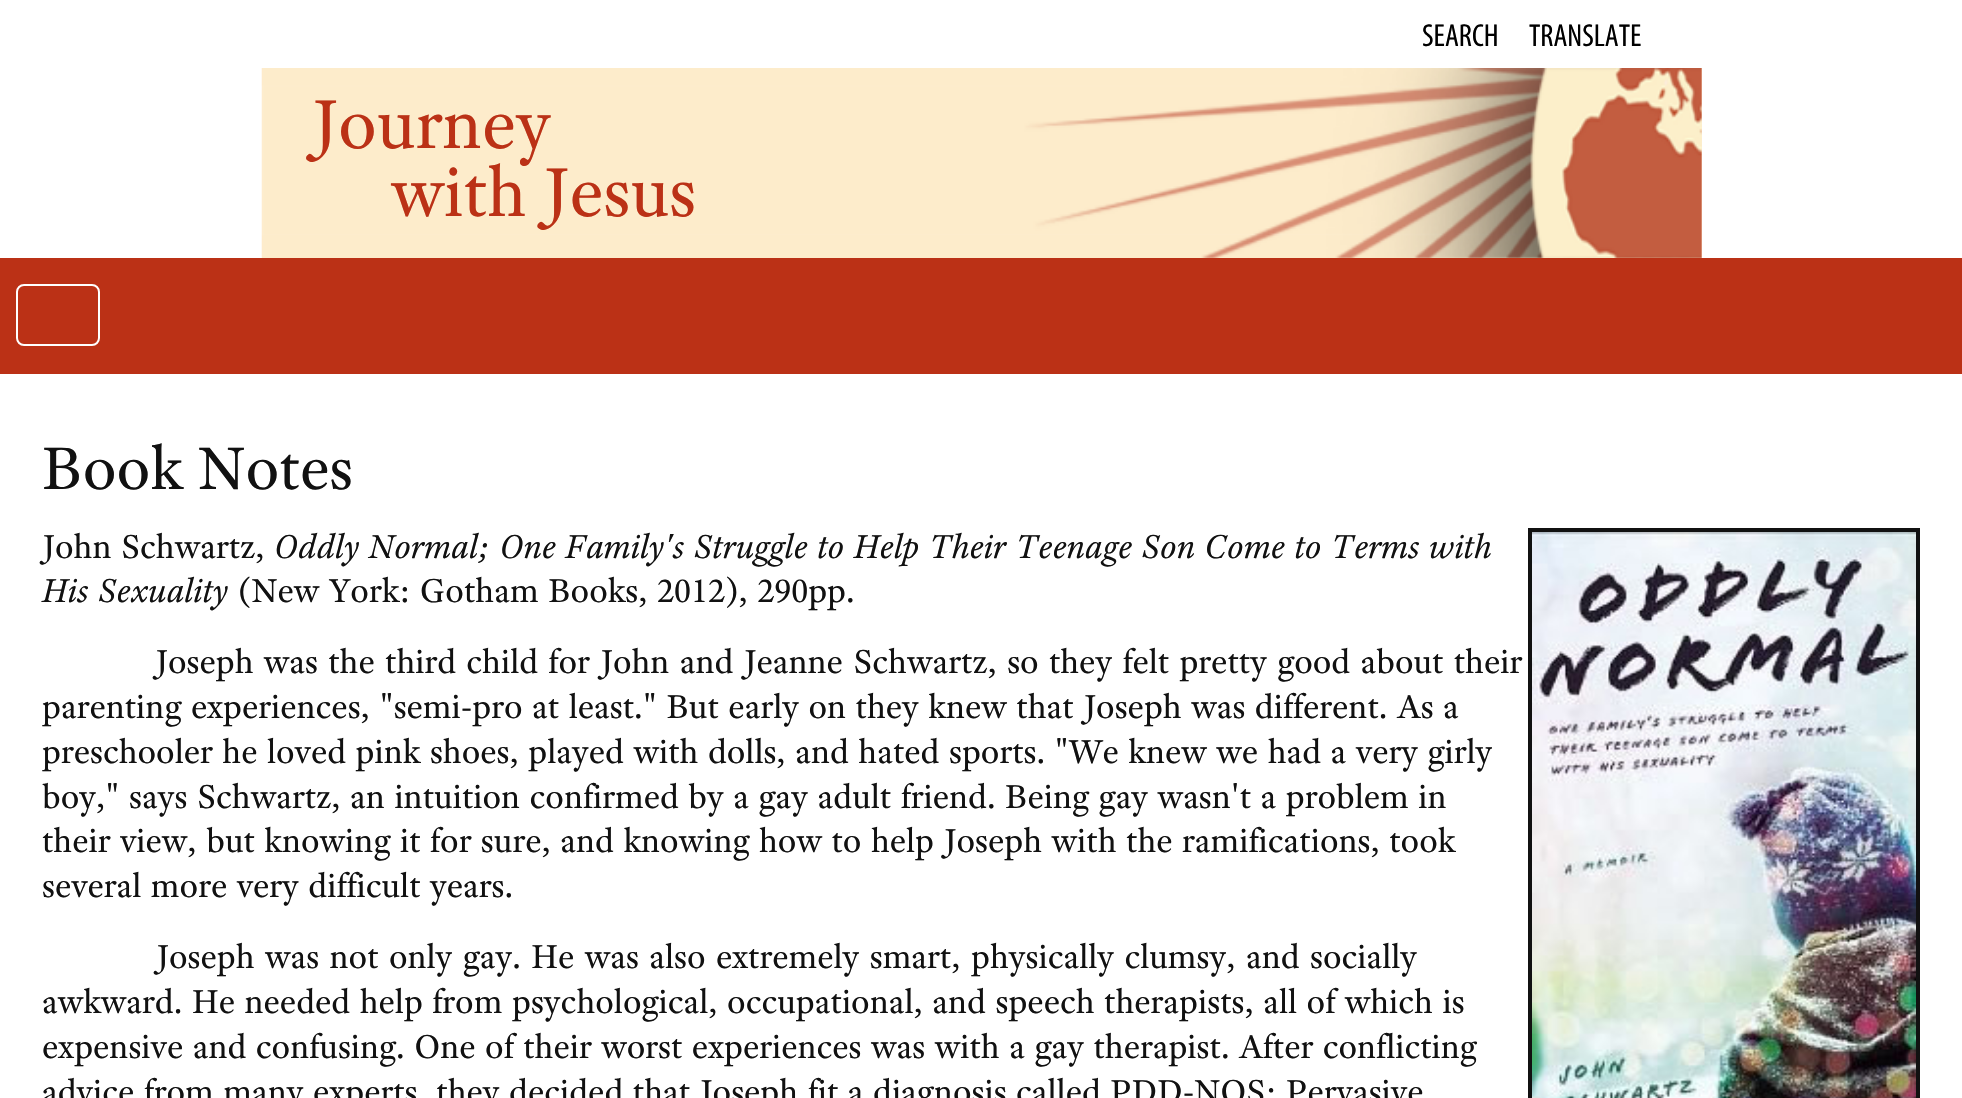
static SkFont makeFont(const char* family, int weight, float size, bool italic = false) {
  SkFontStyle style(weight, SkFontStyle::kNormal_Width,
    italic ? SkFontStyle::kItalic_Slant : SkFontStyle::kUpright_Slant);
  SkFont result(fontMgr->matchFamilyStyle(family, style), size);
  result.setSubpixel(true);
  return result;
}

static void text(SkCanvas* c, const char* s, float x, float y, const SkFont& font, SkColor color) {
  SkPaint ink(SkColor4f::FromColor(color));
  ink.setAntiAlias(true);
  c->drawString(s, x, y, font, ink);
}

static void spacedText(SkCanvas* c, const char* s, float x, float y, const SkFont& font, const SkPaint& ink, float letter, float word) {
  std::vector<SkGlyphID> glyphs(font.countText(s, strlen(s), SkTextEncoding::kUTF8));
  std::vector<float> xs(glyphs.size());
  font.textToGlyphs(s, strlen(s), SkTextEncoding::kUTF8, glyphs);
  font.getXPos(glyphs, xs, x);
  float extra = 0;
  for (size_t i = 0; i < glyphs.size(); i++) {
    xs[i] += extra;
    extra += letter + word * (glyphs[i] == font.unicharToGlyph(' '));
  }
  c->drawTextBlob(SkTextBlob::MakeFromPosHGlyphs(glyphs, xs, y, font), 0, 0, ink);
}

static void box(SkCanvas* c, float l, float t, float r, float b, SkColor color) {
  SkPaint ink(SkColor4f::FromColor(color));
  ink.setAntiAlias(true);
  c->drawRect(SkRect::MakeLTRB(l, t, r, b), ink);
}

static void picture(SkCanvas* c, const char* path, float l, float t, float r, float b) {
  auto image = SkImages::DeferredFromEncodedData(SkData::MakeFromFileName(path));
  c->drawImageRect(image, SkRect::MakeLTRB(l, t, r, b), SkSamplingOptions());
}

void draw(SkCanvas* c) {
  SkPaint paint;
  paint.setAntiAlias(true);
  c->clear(0xffffffff);
  SkFont face1 = makeFont("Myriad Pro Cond", 400, 32);
  text(c, "SEARCH", 1422, 46, face1, 0xff000000);
  text(c, "TRANSLATE", 1529, 46, face1, 0xff000000);
  box(c, 262, 68, 1702, 258, 0xfffdeccc);
  picture(c, "img_01.png", 261, 68, 1702, 258);
  SkFont face2 = makeFont("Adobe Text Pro", 400, 73.5f);
  text(c, "Journey", 311, 148, face2, 0xffbb3116);
  text(c, "with Jesus", 391, 216, face2, 0xffbb3116);
  SkFont face3 = makeFont("Adobe Text Pro", 400, 64);
  paint.setColor(0xff111111);
  spacedText(c, "Book Notes", 42, 489, face3, paint, 0, 2);
  SkFont face4 = makeFont("Adobe Text Pro", 400, 35.2f);
  spacedText(c, "John Schwartz,", 42, 558, face4, paint, 0, 2);
  SkFont face5 = makeFont("Adobe Text Pro", 400, 35.2f, true);
  spacedText(c, "Oddly Normal; One Family's Struggle to Help Their Teenage Son Come to Terms with", 274, 558, face5, paint, 0, 2);
  paint.setStyle(SkPaint::kStroke_Style);
  paint.setStrokeWidth(4);
  c->drawRect(SkRect::MakeLTRB(1530, 530, 1918, 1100), paint);
  picture(c, "img_02.png", 1532, 532, 1916, 1098);
  paint.setStyle(SkPaint::kFill_Style);
  spacedText(c, "His Sexuality", 42, 602, face5, paint, 0, 2);
  spacedText(c, "(New York: Gotham Books, 2012), 290pp.", 238, 602, face4, paint, 0, 2);
  spacedText(c, "Joseph was the third child for John and Jeanne Schwartz, so they felt pretty good about their", 155, 673, face4, paint, 0, 2.75f);
  spacedText(c, "parenting experiences, \"semi-pro at least.\" But early on they knew that Joseph was different. As a", 42, 718, face4, paint, 0, 2);
  spacedText(c, "preschooler he loved pink shoes, played with dolls, and hated sports. \"We knew we had a very girly", 42, 763, face4, paint, 0, 2);
  spacedText(c, "boy,\" says Schwartz, an intuition confirmed by a gay adult friend. Being gay wasn't a problem in", 42, 808, face4, paint, 0, 2);
  spacedText(c, "their view, but knowing it for sure, and knowing how to help Joseph with the ramifications, took", 42, 852, face4, paint, 0, 2);
  spacedText(c, "several more very difficult years.", 42, 897, face4, paint, 0, 2);
  spacedText(c, "Joseph was not only gay. He was also extremely smart, physically clumsy, and socially", 156, 968, face4, paint, 0, 2.9f);
  text(c, "awkward.", 42, 1013, face4, 0xff111111);
  spacedText(c, "He needed help from", 192, 1013, face4, paint, 0, 2);
  spacedText(c, "psychological, occupational, and speech therapists, all of which is", 512, 1013, face4, paint, 0, 2);
  spacedText(c, "expensive and confusing. One of their worst experiences was with a gay therapist. After conflicting", 42, 1058, face4, paint, 0, 2);
  spacedText(c, "advice from many experts, they decided that Joseph fit a diagnosis called PDD-NOS: Pervasive", 42, 1103, face4, paint, 0, 2);
  box(c, 0, 258, 1962, 374, 0xffbb3116);
  paint.setStyle(SkPaint::kStroke_Style);
  paint.setStrokeWidth(2);
  paint.setColor(0xffffffff);
  c->drawRoundRect(SkRect::MakeLTRB(17, 285, 99, 345), 7, 7, paint);
}
